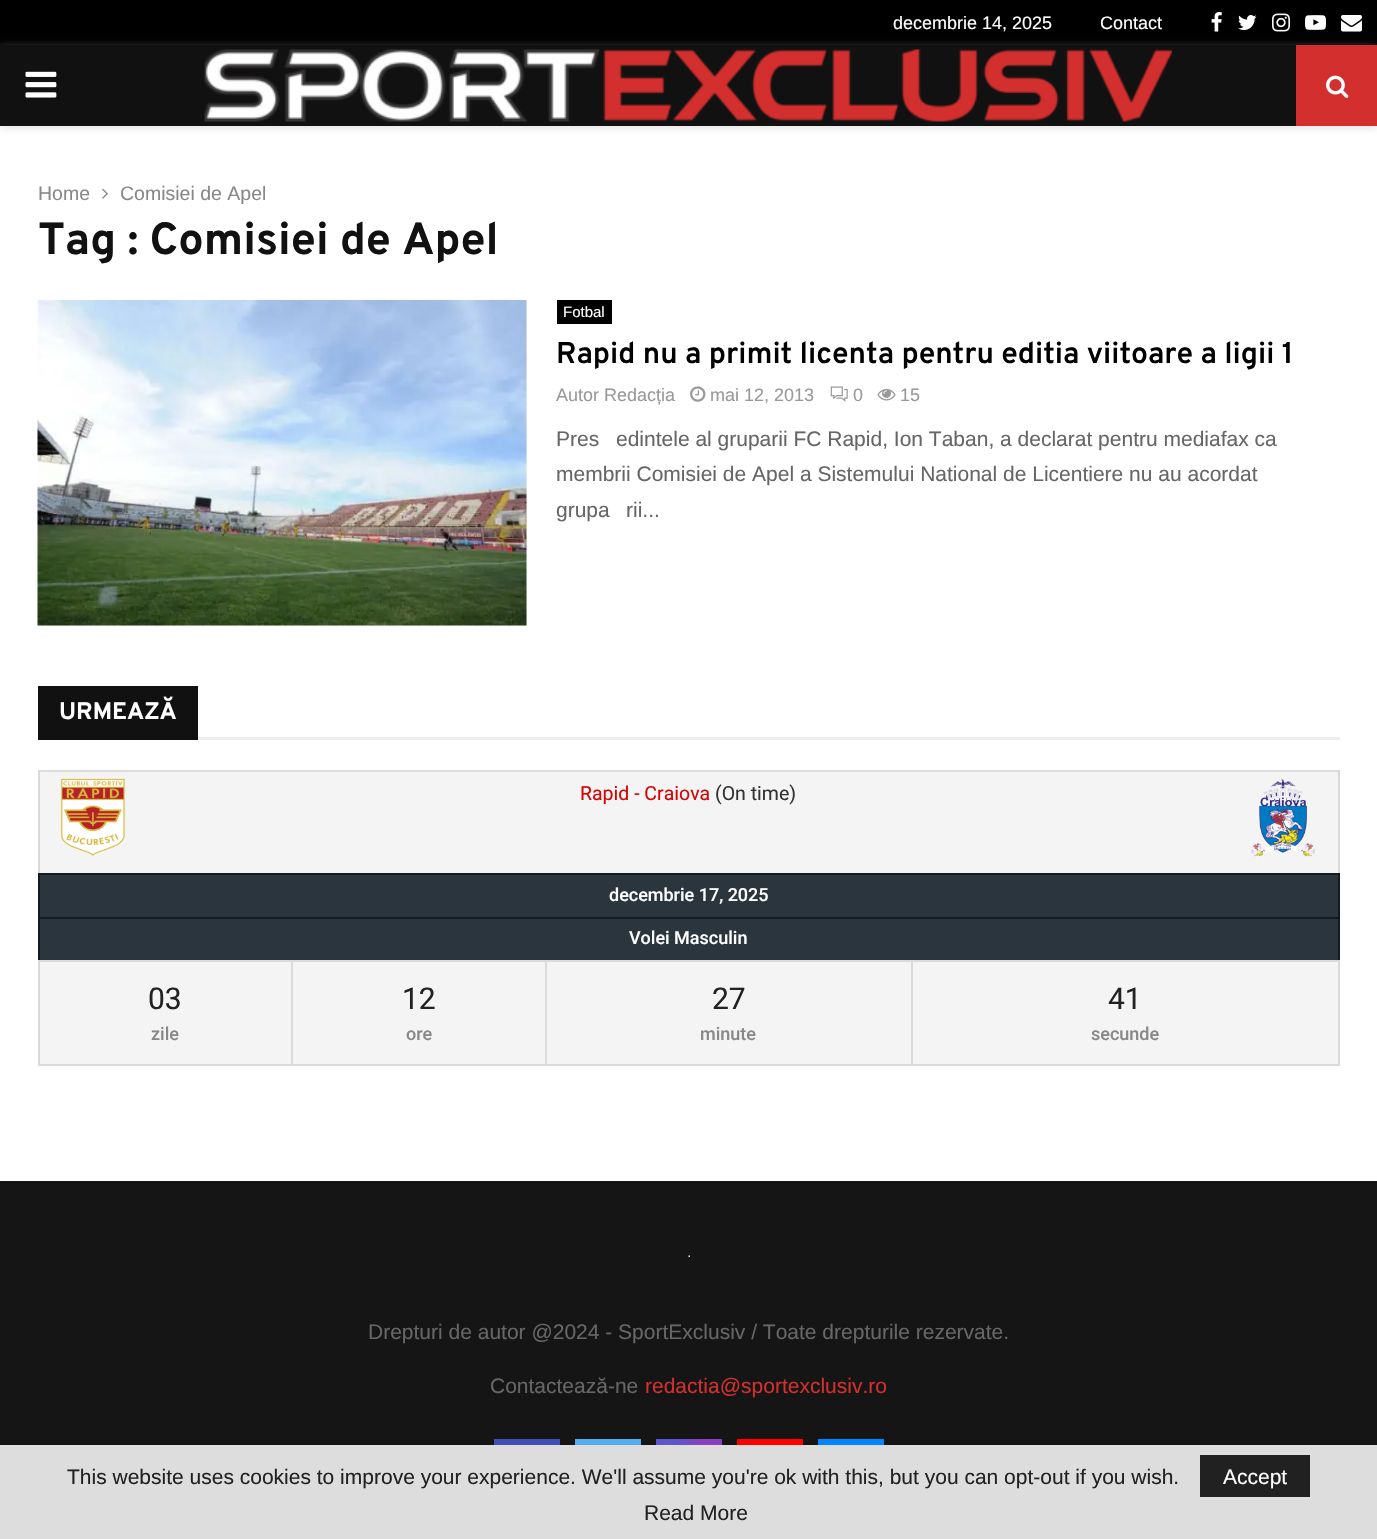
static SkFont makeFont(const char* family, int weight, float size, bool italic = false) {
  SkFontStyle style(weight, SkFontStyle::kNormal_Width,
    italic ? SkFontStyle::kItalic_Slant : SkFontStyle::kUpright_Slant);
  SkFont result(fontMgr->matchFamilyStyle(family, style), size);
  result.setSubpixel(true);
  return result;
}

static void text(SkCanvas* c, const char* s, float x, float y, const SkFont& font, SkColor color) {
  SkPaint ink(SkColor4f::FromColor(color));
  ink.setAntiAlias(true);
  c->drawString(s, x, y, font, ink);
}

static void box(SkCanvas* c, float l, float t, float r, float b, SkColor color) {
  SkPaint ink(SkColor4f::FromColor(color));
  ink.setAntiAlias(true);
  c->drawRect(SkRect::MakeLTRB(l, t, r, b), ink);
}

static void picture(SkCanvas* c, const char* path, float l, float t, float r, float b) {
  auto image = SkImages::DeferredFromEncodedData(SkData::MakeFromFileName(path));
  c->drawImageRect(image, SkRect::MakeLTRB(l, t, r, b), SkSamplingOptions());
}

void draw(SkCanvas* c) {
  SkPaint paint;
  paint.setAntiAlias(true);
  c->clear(0xffffffff);
  box(c, 0, 0, 1377, 45, 0xff000000);
  SkFont face1 = makeFont("Liberation Sans", 400, 18);
  text(c, "decembrie 14, 2025", 893, 29, face1, 0xffffffff);
  text(c, "Contact", 1100, 29, face1, 0xffffffff);
  picture(c, "img_01.png", 1211, 12, 1222, 32);
  picture(c, "img_02.png", 1238, 15, 1257, 30);
  picture(c, "img_03.png", 1272, 13, 1290, 32);
  picture(c, "img_04.png", 1305, 15, 1326, 30);
  picture(c, "img_05.png", 1341, 15, 1362, 32);
  paint.setColor(0x75bebebe);
  paint.setMaskFilter(SkMaskFilter::MakeBlur(kNormal_SkBlurStyle, 4));
  c->drawRect(SkRect::MakeLTRB(0, 47, 1377, 128), paint);
  paint.setMaskFilter(nullptr);
  box(c, 0, 45, 1296, 126, 0xff111111);
  picture(c, "img_06.png", 25, 71, 57, 98);
  picture(c, "img_07.png", 204, 49, 1173, 122);
  box(c, 1296, 45, 1377, 126, 0xffd32f2f);
  picture(c, "img_08.png", 1326, 75, 1349, 98);
  SkFont face2 = makeFont("Liberation Sans", 400, 19.5f);
  text(c, "Home", 38, 200, face2, 0xff888888);
  picture(c, "img_09.png", 102, 188, 108, 199);
  text(c, "Comisiei de Apel", 120, 200, face2, 0xff888888);
  SkFont face3 = makeFont("Overpass", 700, 45);
  text(c, "Tag : Comisiei de Apel", 38, 254, face3, 0xff111111);
  box(c, 38, 300, 527, 626, 0xfff5f5f5);
  picture(c, "img_10.png", 37, 300, 527, 626);
  box(c, 557, 300, 612, 324, 0xff000000);
  SkFont face4 = makeFont("Liberation Sans", 400, 15);
  text(c, "Fotbal", 563, 317, face4, 0xffffffff);
  SkFont face5 = makeFont("Overpass", 600, 30);
  text(c, "Rapid nu a primit licenta pentru editia viitoare a ligii 1", 556, 363, face5, 0xff000000);
  text(c, "Autor Redacția", 556, 401, face1, 0xff999999);
  picture(c, "img_11.png", 690, 386, 706, 402);
  text(c, "mai 12, 2013", 710, 401, face1, 0xff999999);
  picture(c, "img_12.png", 830, 386, 848, 402);
  text(c, "0", 853, 401, face1, 0xff999999);
  picture(c, "img_13.png", 877, 388, 896, 401);
  text(c, "15", 900, 401, face1, 0xff999999);
  SkFont face6 = makeFont("Liberation Sans", 400, 21);
  text(c, "Pres", 556, 446, face6, 0xff666666);
  text(c, "edintele al gruparii FC Rapid, Ion Taban, a declarat pentru mediafax ca", 616, 446, face6, 0xff666666);
  text(c, "membrii Comisiei de Apel a Sistemului National de Licentiere nu au acordat", 556, 481, face6, 0xff666666);
  text(c, "grupa", 556, 517, face6, 0xff666666);
  text(c, "rii...", 626, 517, face6, 0xff666666);
  box(c, 198, 737, 1340, 740, 0xffececec);
  box(c, 38, 686, 198, 740, 0xff111111);
  SkFont face7 = makeFont("Overpass", 700, 24);
  text(c, "URMEAZĂ", 59, 719, face7, 0xffffffff);
  box(c, 40, 772, 1338, 873, 0xfff4f4f4);
  box(c, 38, 770, 1340, 772, 0xffdadada);
  box(c, 1338, 770, 1340, 873, 0xffdadada);
  box(c, 38, 770, 40, 873, 0xffdadada);
  picture(c, "img_14.png", 60, 778, 125, 856);
  SkFont face8 = makeFont("Roboto", 400, 19.5f);
  text(c, "Rapid - Craiova", 580, 800, face8, 0xffd50505);
  text(c, "(On time)", 715, 800, face8, 0xff333333);
  picture(c, "img_15.png", 1251, 778, 1315, 857);
  box(c, 40, 875, 1338, 917, 0xff2b353e);
  box(c, 38, 873, 1340, 875, 0xff111b24);
  box(c, 1338, 873, 1340, 917, 0xff111b24);
  box(c, 38, 873, 40, 917, 0xff111b24);
  SkFont face9 = makeFont("Roboto", 500, 18);
  text(c, "decembrie 17, 2025", 609, 901, face9, 0xffffffff);
  box(c, 40, 919, 1338, 960, 0xff2b353e);
  box(c, 38, 917, 1340, 919, 0xff111b24);
  box(c, 1338, 917, 1340, 960, 0xff111b24);
  box(c, 38, 917, 40, 960, 0xff111b24);
  text(c, "Volei Masculin", 629, 944, face9, 0xffffffff);
  box(c, 40, 962, 1338, 1064, 0xfff4f4f4);
  box(c, 38, 960, 1340, 962, 0xffdadada);
  box(c, 1338, 960, 1340, 1065, 0xffdadada);
  box(c, 38, 1064, 1340, 1066, 0xffdadada);
  box(c, 38, 960, 40, 1065, 0xffdadada);
  SkFont face10 = makeFont("Roboto", 400, 30);
  text(c, "03", 148, 1009, face10, 0xff222222);
  text(c, "zile", 151, 1040, face9, 0xff888888);
  box(c, 291, 960, 293, 1065, 0xffdadada);
  text(c, "12", 402, 1009, face10, 0xff222222);
  text(c, "ore", 406, 1040, face9, 0xff888888);
  box(c, 545, 960, 547, 1065, 0xffdadada);
  text(c, "27", 712, 1009, face10, 0xff222222);
  text(c, "minute", 700, 1040, face9, 0xff888888);
  box(c, 911, 960, 913, 1065, 0xffdadada);
  text(c, "41", 1108, 1009, face10, 0xff222222);
  text(c, "secunde", 1091, 1040, face9, 0xff888888);
  box(c, 0, 1181, 1377, 1445, 0xff151515);
  picture(c, "img_16.png", 688, 1255, 690, 1257);
  text(c, "Drepturi de autor @2024 - SportExclusiv / Toate drepturile rezervate.", 368, 1339, face6, 0xff666666);
  text(c, "Contactează-ne", 490, 1393, face6, 0xff666666);
  text(c, "redactia@sportexclusiv.ro", 645, 1393, face6, 0xffd32f2f);
  box(c, 494, 1439, 560, 1445, 0xff3f51b5);
  box(c, 575, 1439, 641, 1445, 0xff55acee);
  {
    const SkColor colors[] = {0xff6559ca, 0xffbc318f, 0xffe33f5f, 0xfff77638, 0xfffec66d};
    const float stops[] = {0, 0.3f, 0.5f, 0.7f, 1};
    const SkPoint ends[] = {{689, 1439}, {689, 1505}};
    paint.setShader(SkGradientShader::MakeLinear(ends, colors, stops, 5, SkTileMode::kClamp));
    paint.setAlpha(255);
  }
  c->drawRect(SkRect::MakeLTRB(656, 1439, 722, 1445), paint);
  {
    const SkColor colors[] = {0xffd9317a, 0x00d9317a};
    const float stops[] = {0, 1};
    paint.setShader(SkGradientShader::MakeRadial({722, 1505}, 93, colors, stops, 2, SkTileMode::kClamp));
    paint.setAlpha(255);
  }
  c->drawRect(SkRect::MakeLTRB(656, 1439, 722, 1445), paint);
  {
    const SkColor colors[] = {0xff893dc2, 0x00893dc2};
    const float stops[] = {0, 0.5f};
    SkMatrix m = SkMatrix::Translate(695, 1425).preScale(56, 112);
    paint.setShader(SkGradientShader::MakeRadial({0, 0}, 1, colors, stops, 2, SkTileMode::kClamp, 0, &m));
    paint.setAlpha(255);
  }
  c->drawRect(SkRect::MakeLTRB(669, 1439, 721, 1445), paint);
  {
    const SkColor colors[] = {0xff893dc2, 0x00893dc2};
    const float stops[] = {0, 0.5f};
    paint.setShader(SkGradientShader::MakeRadial({722, 1439}, 93, colors, stops, 2, SkTileMode::kClamp));
    paint.setAlpha(255);
  }
  c->drawRect(SkRect::MakeLTRB(677, 1439, 722, 1445), paint);
  {
    const SkColor colors[] = {0xff5258cf, 0x005258cf};
    const float stops[] = {0, 0.5f};
    SkMatrix m = SkMatrix::Translate(669, 1406).preScale(75, 140);
    paint.setShader(SkGradientShader::MakeRadial({0, 0}, 1, colors, stops, 2, SkTileMode::kClamp, 0, &m));
    paint.setAlpha(255);
  }
  c->drawRect(SkRect::MakeLTRB(656, 1439, 701, 1445), paint);
  {
    const SkColor colors[] = {0xff5258cf, 0x005258cf};
    const float stops[] = {0, 0.5f};
    SkMatrix m = SkMatrix::Translate(656, 1422).preScale(93, 117);
    paint.setShader(SkGradientShader::MakeRadial({0, 0}, 1, colors, stops, 2, SkTileMode::kClamp, 0, &m));
    paint.setAlpha(255);
  }
  c->drawRect(SkRect::MakeLTRB(656, 1439, 699, 1445), paint);
  box(c, 737, 1439, 803, 1445, 0xffff0000);
  box(c, 818, 1439, 884, 1445, 0xff0084ff);
  box(c, 0, 1445, 1377, 1539, 0xffdddddd);
  text(c, "This website uses cookies to improve your experience. We'll assume you're ok with this, but you can opt-out if you wish.", 67, 1484, face6, 0xff222222);
  box(c, 1200, 1455, 1310, 1497, 0xff212121);
  text(c, "Accept", 1223, 1484, face6, 0xffffffff);
  text(c, "Read More", 644, 1520, face6, 0xff222222);
}
